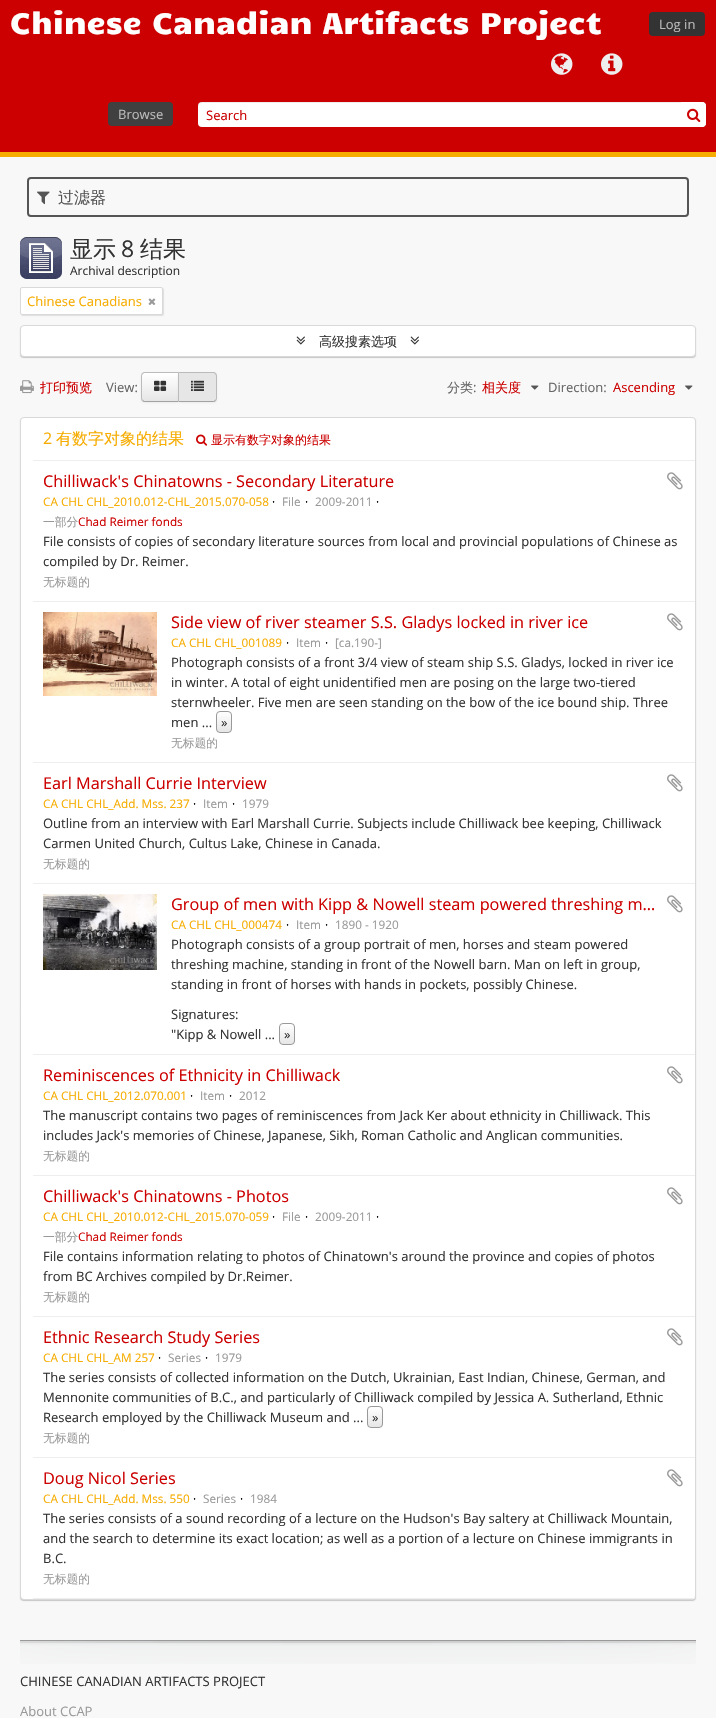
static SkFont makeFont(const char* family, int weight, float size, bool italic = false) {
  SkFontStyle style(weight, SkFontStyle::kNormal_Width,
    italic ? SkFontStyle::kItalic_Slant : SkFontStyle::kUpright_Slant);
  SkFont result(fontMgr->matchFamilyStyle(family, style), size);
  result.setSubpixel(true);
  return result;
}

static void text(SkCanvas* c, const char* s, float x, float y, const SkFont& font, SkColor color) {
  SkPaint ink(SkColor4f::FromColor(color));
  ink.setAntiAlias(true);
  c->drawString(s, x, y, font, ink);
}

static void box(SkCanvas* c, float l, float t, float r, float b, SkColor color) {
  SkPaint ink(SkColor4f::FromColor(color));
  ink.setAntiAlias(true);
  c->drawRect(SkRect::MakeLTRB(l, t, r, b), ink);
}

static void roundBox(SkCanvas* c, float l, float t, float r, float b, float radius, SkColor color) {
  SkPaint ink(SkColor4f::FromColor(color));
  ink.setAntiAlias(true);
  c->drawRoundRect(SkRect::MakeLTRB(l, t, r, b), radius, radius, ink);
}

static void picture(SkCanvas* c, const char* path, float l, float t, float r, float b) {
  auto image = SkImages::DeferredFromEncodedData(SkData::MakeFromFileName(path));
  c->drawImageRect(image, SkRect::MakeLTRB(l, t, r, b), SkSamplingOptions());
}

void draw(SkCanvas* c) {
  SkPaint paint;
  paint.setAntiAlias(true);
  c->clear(0xfff8f8f8);
  box(c, 0, 0, 716, 152, 0xffcc0000);
  box(c, 0, 152, 716, 157, 0xfff6ac00);
  SkFont face1 = makeFont("Candal", 400, 30);
  text(c, "Chinese Canadian Artifacts Project", 10, 34, face1, 0xffffffff);
  roundBox(c, 649, 12, 705, 36, 4, 0xff333333);
  SkFont face2 = makeFont("Open Sans", 400, 13);
  text(c, "Log in", 659, 29, face2, 0xffbbbbbb);
  picture(c, "img_01.png", 551, 53, 573, 75);
  picture(c, "img_02.png", 601, 53, 623, 75);
  roundBox(c, 108, 102, 173, 126, 4, 0xff404040);
  text(c, "Browse", 118, 119, face2, 0xffbbbbbb);
  roundBox(c, 198, 102, 706, 127, 4, 0xffffffff);
  paint.setColor(0x12000000);
  c->drawPath(SkPathBuilder().moveTo(202, 103).lineTo(702, 103).cubicTo(704, 103, 706, 105, 706, 107).lineTo(706, 106).cubicTo(706, 104, 704, 102, 702, 102).lineTo(202, 102).cubicTo(200, 102, 198, 104, 198, 106).lineTo(198, 107).cubicTo(198, 105, 200, 103, 202, 103).close().detach(), paint);
  text(c, "Search", 206, 120, face2, 0xffcc0000);
  paint.setColor(0xffffffff);
  c->drawPath(SkPathBuilder().moveTo(681, 102).lineTo(702, 102).cubicTo(704, 102, 706, 104, 706, 106).lineTo(706, 123).cubicTo(706, 125, 704, 127, 702, 127).lineTo(681, 127).close().detach(), paint);
  picture(c, "img_03.png", 687, 108, 701, 122);
  paint.setStyle(SkPaint::kStroke_Style);
  paint.setStrokeWidth(2);
  paint.setColor(0xff555555);
  c->drawRoundRect(SkRect::MakeLTRB(28, 178, 688, 216), 3, 3, paint);
  picture(c, "img_04.png", 37, 191, 50, 205);
  SkFont face3 = makeFont("WenQuanYi Zen Hei", 500, 16);
  text(c, "过滤器", 58, 203, face3, 0xff555555);
  picture(c, "img_05.png", 20, 237, 62, 279);
  SkFont face4 = makeFont("WenQuanYi Zen Hei", 500, 23);
  text(c, "显示", 70, 257, face4, 0xff333333);
  SkFont face5 = makeFont("Open Sans", 400, 23);
  text(c, "8", 121, 257, face5, 0xff333333);
  text(c, "结果", 140, 257, face4, 0xff333333);
  SkFont face6 = makeFont("Open Sans", 400, 12);
  text(c, "Archival description", 70, 275, face6, 0xff333333);
  paint.setStyle(SkPaint::kFill_Style);
  paint.setColor(0x1a000000);
  paint.setMaskFilter(SkMaskFilter::MakeBlur(kNormal_SkBlurStyle, 0.5f));
  c->drawRoundRect(SkRect::MakeLTRB(21, 288, 164, 316), 2, 2, paint);
  paint.setMaskFilter(nullptr);
  paint.setColor(0xffffffff);
  c->drawRoundRect(SkRect::MakeLTRB(20.5f, 287.5f, 162.5f, 314.5f), 1.5f, 1.5f, paint);
  paint.setStyle(SkPaint::kStroke_Style);
  paint.setStrokeWidth(1);
  paint.setColor(0xffd9d9d9);
  c->drawRoundRect(SkRect::MakeLTRB(20.5f, 287.5f, 162.5f, 314.5f), 1.5f, 1.5f, paint);
  text(c, "Chinese Canadians", 27, 306, face2, 0xfff6ac00);
  picture(c, "img_06.png", 148, 298, 156, 305);
  paint.setStyle(SkPaint::kFill_Style);
  paint.setColor(0x33000000);
  paint.setMaskFilter(SkMaskFilter::MakeBlur(kNormal_SkBlurStyle, 0.5f));
  c->drawRoundRect(SkRect::MakeLTRB(20, 326, 696, 358), 4, 4, paint);
  paint.setMaskFilter(nullptr);
  paint.setColor(0xffffffff);
  c->drawRoundRect(SkRect::MakeLTRB(20.5f, 325.5f, 695.5f, 356.5f), 3.5f, 3.5f, paint);
  paint.setStyle(SkPaint::kStroke_Style);
  paint.setColor(0xffd9d9d9);
  c->drawRoundRect(SkRect::MakeLTRB(20.5f, 325.5f, 695.5f, 356.5f), 3.5f, 3.5f, paint);
  picture(c, "img_07.png", 296, 336, 305, 345);
  SkFont face7 = makeFont("WenQuanYi Zen Hei", 500, 13);
  text(c, "高级搜素选项", 319, 346, face7, 0xff333333);
  picture(c, "img_07.png", 410, 336, 419, 345);
  picture(c, "img_08.png", 20, 380, 34, 394);
  text(c, "打印预览", 40, 392, face7, 0xffcc0000);
  text(c, "View:", 106, 392, face2, 0xff666666);
  paint.setStyle(SkPaint::kFill_Style);
  paint.setColor(0x0d000000);
  paint.setMaskFilter(SkMaskFilter::MakeBlur(kNormal_SkBlurStyle, 1));
  c->drawRoundRect(SkRect::MakeLTRB(141, 373, 179, 403), 4, 4, paint);
  paint.setMaskFilter(nullptr);
  c->save();
  c->clipPath(SkPathBuilder().moveTo(145, 372).lineTo(179, 372).lineTo(179, 402).lineTo(145, 402).cubicTo(143, 402, 141, 400, 141, 398).lineTo(141, 376).cubicTo(141, 374, 143, 372, 145, 372).close().detach(), true);
  {
    const SkColor colors[] = {0xffffffff, 0xffe6e6e6};
    const float stops[] = {0, 1};
    const SkPoint ends[] = {{160, 373}, {160, 401}};
    paint.setShader(SkGradientShader::MakeLinear(ends, colors, stops, 2, SkTileMode::kClamp));
    paint.setAlpha(255);
  }
  c->drawRect(SkRect::MakeLTRB(141, 373, 178, 401), paint);
  c->restore();
  paint.setShader(nullptr);
  paint.setColor(0xffbbbbbb);
  c->drawPath(SkPathBuilder().moveTo(145, 372).cubicTo(144, 372, 143, 372.5f, 142, 373).lineTo(143, 374).cubicTo(143.5f, 373.5f, 144, 373, 145, 373).lineTo(178, 373).lineTo(179, 372).close().detach(), paint);
  paint.setColor(0xffa2a2a2);
  c->drawPath(SkPathBuilder().moveTo(179, 402).lineTo(178, 401).lineTo(145, 401).cubicTo(144, 401, 143.5f, 400.5f, 143, 400).lineTo(142, 401).cubicTo(143, 401.5f, 144, 402, 145, 402).close().detach(), paint);
  paint.setColor(0xffbbbbbb);
  c->drawPath(SkPathBuilder().moveTo(141, 376).lineTo(141, 398).cubicTo(141, 399, 141.5f, 400, 142, 401).lineTo(143, 400).cubicTo(142.5f, 399.5f, 142, 399, 142, 398).lineTo(142, 376).cubicTo(142, 375, 142.5f, 374.5f, 143, 374).lineTo(142, 373).cubicTo(141.5f, 374, 141, 375, 141, 376).close().detach(), paint);
  picture(c, "img_09.png", 154, 380, 167, 391);
  paint.setColor(0x0d000000);
  paint.setMaskFilter(SkMaskFilter::MakeBlur(kNormal_SkBlurStyle, 1));
  c->drawRoundRect(SkRect::MakeLTRB(178, 373, 217, 403), 4, 4, paint);
  paint.setMaskFilter(nullptr);
  paint.setColor(0xffe6e6e6);
  c->drawPath(SkPathBuilder().moveTo(178, 372).lineTo(213, 372).cubicTo(215, 372, 217, 374, 217, 376).lineTo(217, 398).cubicTo(217, 400, 215, 402, 213, 402).lineTo(178, 402).close().detach(), paint);
  paint.setColor(0xffbbbbbb);
  c->drawPath(SkPathBuilder().moveTo(178, 372).lineTo(179, 373).lineTo(213, 373).cubicTo(214, 373, 214.5f, 373.5f, 215, 374).lineTo(216, 373).cubicTo(215, 372.5f, 214, 372, 213, 372).close().detach(), paint);
  c->drawPath(SkPathBuilder().moveTo(217, 398).lineTo(217, 376).cubicTo(217, 375, 216.5f, 374, 216, 373).lineTo(215, 374).cubicTo(215.5f, 374.5f, 216, 375, 216, 376).lineTo(216, 398).cubicTo(216, 399, 215.5f, 399.5f, 215, 400).lineTo(216, 401).cubicTo(216.5f, 400, 217, 399, 217, 398).close().detach(), paint);
  paint.setColor(0xffa2a2a2);
  c->drawPath(SkPathBuilder().moveTo(213, 402).cubicTo(214, 402, 215, 401.5f, 216, 401).lineTo(215, 400).cubicTo(214.5f, 400.5f, 214, 401, 213, 401).lineTo(179, 401).lineTo(178, 402).close().detach(), paint);
  paint.setColor(0xffbbbbbb);
  c->drawPath(SkPathBuilder().moveTo(178, 372).lineTo(178, 402).lineTo(179, 401).lineTo(179, 373).close().detach(), paint);
  picture(c, "img_10.png", 191, 380, 204, 391);
  text(c, "分类", 447, 392, face7, 0xff666666);
  text(c, ":", 473, 392, face2, 0xff666666);
  text(c, "相关度", 482, 392, face7, 0xffcc0000);
  picture(c, "img_11.png", 531, 385, 539, 390);
  text(c, "Direction:", 548, 392, face2, 0xff666666);
  text(c, "Ascending", 613, 392, face2, 0xffcc0000);
  picture(c, "img_11.png", 685, 385, 693, 390);
  paint.setColor(0x33000000);
  paint.setMaskFilter(SkMaskFilter::MakeBlur(kNormal_SkBlurStyle, 0.5f));
  c->drawRoundRect(SkRect::MakeLTRB(20, 418, 696, 1601), 4, 4, paint);
  paint.setMaskFilter(nullptr);
  paint.setColor(0xffffffff);
  c->drawRoundRect(SkRect::MakeLTRB(20.5f, 417.5f, 695.5f, 1599.5f), 3.5f, 3.5f, paint);
  paint.setStyle(SkPaint::kStroke_Style);
  paint.setColor(0xffd9d9d9);
  c->drawRoundRect(SkRect::MakeLTRB(20.5f, 417.5f, 695.5f, 1599.5f), 3.5f, 3.5f, paint);
  box(c, 33, 460, 695, 461, 0xffeeeeee);
  SkFont face8 = makeFont("Open Sans", 400, 16);
  text(c, "2", 43, 444, face8, 0xfff6ac00);
  text(c, "有数字对象的结果", 56, 444, face3, 0xfff6ac00);
  picture(c, "img_12.png", 196, 434, 208, 446);
  SkFont face9 = makeFont("WenQuanYi Zen Hei", 500, 12);
  text(c, "显示有数字对象的结果", 211, 444, face9, 0xffcc0000);
  box(c, 33, 601, 695, 602, 0xffeeeeee);
  SkFont face10 = makeFont("Open Sans", 400, 16.25f);
  text(c, "Chilliwack's Chinatowns - Secondary Literature", 43, 487, face10, 0xffcc0000);
  picture(c, "img_13.png", 667, 472, 683, 490);
  SkFont face11 = makeFont("Open Sans", 400, 11.75f);
  text(c, "CA CHL CHL_2010.012-CHL_2015.070-058", 43, 506, face11, 0xfff6ac00);
  text(c, "·", 272, 506, face11, 0xff000000);
  text(c, "File", 282, 506, face11, 0xff999999);
  text(c, "·", 305, 506, face11, 0xff000000);
  text(c, "2009-2011", 315, 506, face11, 0xff999999);
  text(c, "·", 376, 506, face11, 0xff000000);
  SkFont face12 = makeFont("WenQuanYi Zen Hei", 500, 11.75f);
  text(c, "一部分", 43, 526, face12, 0xff999999);
  text(c, "Chad Reimer fonds", 78, 526, face11, 0xffcc0000);
  text(c, "File consists of copies of secondary literature sources from local and provincial populations of Chinese as", 43, 546, face2, 0xff333333);
  text(c, "compiled by Dr. Reimer.", 43, 566, face2, 0xff333333);
  text(c, "无标题的", 43, 586, face12, 0xff999999);
  box(c, 33, 762, 695, 763, 0xffeeeeee);
  picture(c, "img_14.png", 43, 612, 157, 696);
  text(c, "Side view of river steamer S.S. Gladys locked in river ice", 171, 628, face10, 0xffcc0000);
  picture(c, "img_13.png", 667, 613, 683, 631);
  text(c, "CA CHL CHL_001089", 171, 647, face11, 0xfff6ac00);
  text(c, "·", 286, 647, face11, 0xff000000);
  text(c, "Item", 296, 647, face11, 0xff999999);
  text(c, "·", 325, 647, face11, 0xff000000);
  text(c, "[ca.190-]", 335, 647, face11, 0xff999999);
  text(c, "Photograph consists of a front 3/4 view of steam ship S.S. Gladys, locked in river ice", 171, 667, face2, 0xff333333);
  text(c, "in winter. A total of eight unidentified men are posing on the large two-tiered", 171, 687, face2, 0xff333333);
  text(c, "sternwheeler. Five men are seen standing on the bow of the ice bound ship. Three", 171, 707, face2, 0xff333333);
  text(c, "men ...", 171, 727, face2, 0xff333333);
  c->save();
  c->clipPath(SkPathBuilder().moveTo(220, 711).lineTo(228, 711).cubicTo(230, 711, 232, 713, 232, 715).lineTo(232, 729).cubicTo(232, 731, 230, 733, 228, 733).lineTo(220, 733).cubicTo(218, 733, 216, 731, 216, 729).lineTo(216, 715).cubicTo(216, 713, 218, 711, 220, 711).close().detach(), true);
  paint.setStyle(SkPaint::kFill_Style);
  {
    const SkColor colors[] = {0xffffffff, 0xffe6e6e6};
    const float stops[] = {0, 1};
    const SkPoint ends[] = {{224, 712}, {224, 732}};
    paint.setShader(SkGradientShader::MakeLinear(ends, colors, stops, 2, SkTileMode::kClamp));
    paint.setAlpha(255);
  }
  c->drawRect(SkRect::MakeLTRB(216, 712, 232, 732), paint);
  c->restore();
  paint.setStyle(SkPaint::kStroke_Style);
  paint.setShader(nullptr);
  paint.setColor(0xff999999);
  c->drawRoundRect(SkRect::MakeLTRB(216.5f, 711.5f, 231.5f, 732.5f), 3.5f, 3.5f, paint);
  text(c, "»", 221, 727, face2, 0xff333333);
  text(c, "无标题的", 171, 747, face12, 0xff999999);
  box(c, 33, 883, 695, 884, 0xffeeeeee);
  text(c, "Earl Marshall Currie Interview", 43, 789, face10, 0xffcc0000);
  picture(c, "img_13.png", 667, 774, 683, 792);
  text(c, "CA CHL CHL_Add. Mss. 237", 43, 808, face11, 0xfff6ac00);
  text(c, "·", 193, 808, face11, 0xff000000);
  text(c, "Item", 203, 808, face11, 0xff999999);
  text(c, "·", 232, 808, face11, 0xff000000);
  text(c, "1979", 242, 808, face11, 0xff999999);
  text(c, "Outline from an interview with Earl Marshall Currie. Subjects include Chilliwack bee keeping, Chilliwack", 43, 828, face2, 0xff333333);
  text(c, "Carmen United Church, Cultus Lake, Chinese in Canada.", 43, 848, face2, 0xff333333);
  text(c, "无标题的", 43, 868, face12, 0xff999999);
  box(c, 33, 1054, 695, 1055, 0xffeeeeee);
  picture(c, "img_15.png", 43, 894, 157, 970);
  text(c, "Group of men with Kipp & Nowell steam powered threshing m…", 171, 910, face10, 0xffcc0000);
  picture(c, "img_13.png", 667, 895, 683, 913);
  text(c, "CA CHL CHL_000474", 171, 929, face11, 0xfff6ac00);
  text(c, "·", 286, 929, face11, 0xff000000);
  text(c, "Item", 296, 929, face11, 0xff999999);
  text(c, "·", 325, 929, face11, 0xff000000);
  text(c, "1890 - 1920", 335, 929, face11, 0xff999999);
  text(c, "Photograph consists of a group portrait of men, horses and steam powered", 171, 949, face2, 0xff333333);
  text(c, "threshing machine, standing in front of the Nowell barn. Man on left in group,", 171, 969, face2, 0xff333333);
  text(c, "standing in front of horses with hands in pockets, possibly Chinese.", 171, 989, face2, 0xff333333);
  text(c, "Signatures:", 171, 1019, face2, 0xff333333);
  text(c, "\"Kipp & Nowell ...", 171, 1039, face2, 0xff333333);
  c->save();
  c->clipPath(SkPathBuilder().moveTo(283, 1023).lineTo(291, 1023).cubicTo(293, 1023, 295, 1025, 295, 1027).lineTo(295, 1041).cubicTo(295, 1043, 293, 1045, 291, 1045).lineTo(283, 1045).cubicTo(281, 1045, 279, 1043, 279, 1041).lineTo(279, 1027).cubicTo(279, 1025, 281, 1023, 283, 1023).close().detach(), true);
  paint.setStyle(SkPaint::kFill_Style);
  {
    const SkColor colors[] = {0xffffffff, 0xffe6e6e6};
    const float stops[] = {0, 1};
    const SkPoint ends[] = {{287, 1024}, {287, 1044}};
    paint.setShader(SkGradientShader::MakeLinear(ends, colors, stops, 2, SkTileMode::kClamp));
    paint.setAlpha(255);
  }
  c->drawRect(SkRect::MakeLTRB(279, 1024, 295, 1044), paint);
  c->restore();
  paint.setStyle(SkPaint::kStroke_Style);
  paint.setShader(nullptr);
  paint.setColor(0xff999999);
  c->drawRoundRect(SkRect::MakeLTRB(279.5f, 1023.5f, 294.5f, 1044.5f), 3.5f, 3.5f, paint);
  text(c, "»", 284, 1039, face2, 0xff333333);
  box(c, 33, 1175, 695, 1176, 0xffeeeeee);
  text(c, "Reminiscences of Ethnicity in Chilliwack", 43, 1081, face10, 0xffcc0000);
  picture(c, "img_13.png", 667, 1066, 683, 1084);
  text(c, "CA CHL CHL_2012.070.001", 43, 1100, face11, 0xfff6ac00);
  text(c, "·", 190, 1100, face11, 0xff000000);
  text(c, "Item", 200, 1100, face11, 0xff999999);
  text(c, "·", 229, 1100, face11, 0xff000000);
  text(c, "2012", 239, 1100, face11, 0xff999999);
  text(c, "The manuscript contains two pages of reminiscences from Jack Ker about ethnicity in Chilliwack. This", 43, 1120, face2, 0xff333333);
  text(c, "includes Jack's memories of Chinese, Japanese, Sikh, Roman Catholic and Anglican communities.", 43, 1140, face2, 0xff333333);
  text(c, "无标题的", 43, 1160, face12, 0xff999999);
  box(c, 33, 1316, 695, 1317, 0xffeeeeee);
  text(c, "Chilliwack's Chinatowns - Photos", 43, 1202, face10, 0xffcc0000);
  picture(c, "img_13.png", 667, 1187, 683, 1205);
  text(c, "CA CHL CHL_2010.012-CHL_2015.070-059", 43, 1221, face11, 0xfff6ac00);
  text(c, "·", 272, 1221, face11, 0xff000000);
  text(c, "File", 282, 1221, face11, 0xff999999);
  text(c, "·", 305, 1221, face11, 0xff000000);
  text(c, "2009-2011", 315, 1221, face11, 0xff999999);
  text(c, "·", 376, 1221, face11, 0xff000000);
  text(c, "一部分", 43, 1241, face12, 0xff999999);
  text(c, "Chad Reimer fonds", 78, 1241, face11, 0xffcc0000);
  text(c, "File contains information relating to photos of Chinatown's around the province and copies of photos", 43, 1261, face2, 0xff333333);
  text(c, "from BC Archives compiled by Dr.Reimer.", 43, 1281, face2, 0xff333333);
  text(c, "无标题的", 43, 1301, face12, 0xff999999);
  box(c, 33, 1457, 695, 1458, 0xffeeeeee);
  text(c, "Ethnic Research Study Series", 43, 1343, face10, 0xffcc0000);
  picture(c, "img_13.png", 667, 1328, 683, 1346);
  text(c, "CA CHL CHL_AM 257", 43, 1362, face11, 0xfff6ac00);
  text(c, "·", 158, 1362, face11, 0xff000000);
  text(c, "Series", 168, 1362, face11, 0xff999999);
  text(c, "·", 205, 1362, face11, 0xff000000);
  text(c, "1979", 215, 1362, face11, 0xff999999);
  text(c, "The series consists of collected information on the Dutch, Ukrainian, East Indian, Chinese, German, and", 43, 1382, face2, 0xff333333);
  text(c, "Mennonite communities of B.C., and particularly of Chilliwack compiled by Jessica A. Sutherland, Ethnic", 43, 1402, face2, 0xff333333);
  text(c, "Research employed by the Chilliwack Museum and ...", 43, 1422, face2, 0xff333333);
  c->save();
  c->clipPath(SkPathBuilder().moveTo(371, 1406).lineTo(379, 1406).cubicTo(381, 1406, 383, 1408, 383, 1410).lineTo(383, 1424).cubicTo(383, 1426, 381, 1428, 379, 1428).lineTo(371, 1428).cubicTo(369, 1428, 367, 1426, 367, 1424).lineTo(367, 1410).cubicTo(367, 1408, 369, 1406, 371, 1406).close().detach(), true);
  paint.setStyle(SkPaint::kFill_Style);
  {
    const SkColor colors[] = {0xffffffff, 0xffe6e6e6};
    const float stops[] = {0, 1};
    const SkPoint ends[] = {{375, 1407}, {375, 1427}};
    paint.setShader(SkGradientShader::MakeLinear(ends, colors, stops, 2, SkTileMode::kClamp));
    paint.setAlpha(255);
  }
  c->drawRect(SkRect::MakeLTRB(367, 1407, 383, 1427), paint);
  c->restore();
  paint.setStyle(SkPaint::kStroke_Style);
  paint.setShader(nullptr);
  paint.setColor(0xff999999);
  c->drawRoundRect(SkRect::MakeLTRB(367.5f, 1406.5f, 382.5f, 1427.5f), 3.5f, 3.5f, paint);
  text(c, "»", 372, 1422, face2, 0xff333333);
  text(c, "无标题的", 43, 1442, face12, 0xff999999);
  box(c, 33, 1598, 695, 1599, 0xffeeeeee);
  text(c, "Doug Nicol Series", 43, 1484, face10, 0xffcc0000);
  picture(c, "img_13.png", 667, 1469, 683, 1487);
  text(c, "CA CHL CHL_Add. Mss. 550", 43, 1503, face11, 0xfff6ac00);
  text(c, "·", 193, 1503, face11, 0xff000000);
  text(c, "Series", 203, 1503, face11, 0xff999999);
  text(c, "·", 240, 1503, face11, 0xff000000);
  text(c, "1984", 250, 1503, face11, 0xff999999);
  text(c, "The series consists of a sound recording of a lecture on the Hudson's Bay saltery at Chilliwack Mountain,", 43, 1523, face2, 0xff333333);
  text(c, "and the search to determine its exact location; as well as a portion of a lecture on Chinese immigrants in", 43, 1543, face2, 0xff333333);
  text(c, "B.C.", 43, 1563, face2, 0xff333333);
  text(c, "无标题的", 43, 1583, face12, 0xff999999);
  picture(c, "img_16.png", 20, 1641, 696, 1664);
  box(c, 20, 1640, 696, 1641, 0xff999999);
  text(c, "CHINESE CANADIAN ARTIFACTS PROJECT", 20, 1686, face2, 0xff333333);
  text(c, "About CCAP", 20, 1716, face2, 0xff999999);
}
